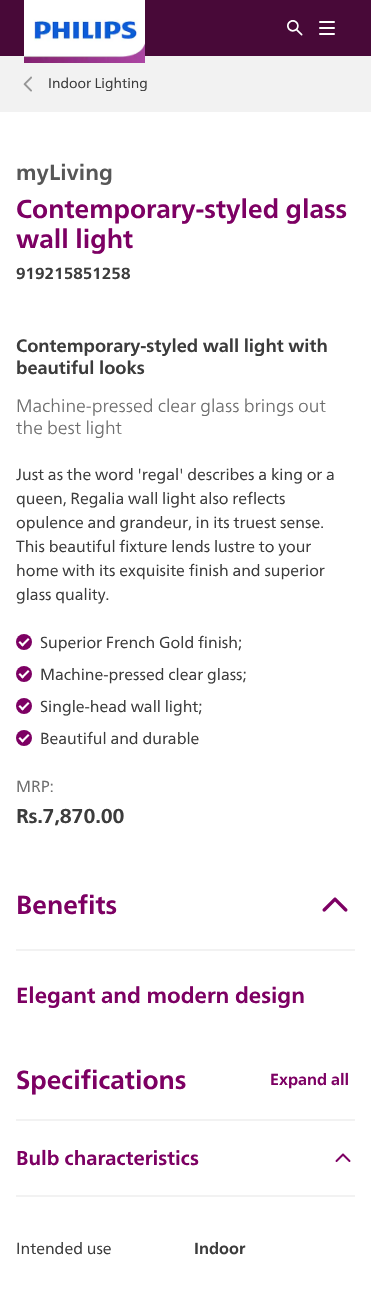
static SkFont makeFont(const char* family, int weight, float size, bool italic = false) {
  SkFontStyle style(weight, SkFontStyle::kNormal_Width,
    italic ? SkFontStyle::kItalic_Slant : SkFontStyle::kUpright_Slant);
  SkFont result(fontMgr->matchFamilyStyle(family, style), size);
  result.setSubpixel(true);
  return result;
}

static void text(SkCanvas* c, const char* s, float x, float y, const SkFont& font, SkColor color) {
  SkPaint ink(SkColor4f::FromColor(color));
  ink.setAntiAlias(true);
  c->drawString(s, x, y, font, ink);
}

static void box(SkCanvas* c, float l, float t, float r, float b, SkColor color) {
  SkPaint ink(SkColor4f::FromColor(color));
  ink.setAntiAlias(true);
  c->drawRect(SkRect::MakeLTRB(l, t, r, b), ink);
}

static void roundBox(SkCanvas* c, float l, float t, float r, float b, float radius, SkColor color) {
  SkPaint ink(SkColor4f::FromColor(color));
  ink.setAntiAlias(true);
  c->drawRoundRect(SkRect::MakeLTRB(l, t, r, b), radius, radius, ink);
}

static void picture(SkCanvas* c, const char* path, float l, float t, float r, float b) {
  auto image = SkImages::DeferredFromEncodedData(SkData::MakeFromFileName(path));
  c->drawImageRect(image, SkRect::MakeLTRB(l, t, r, b), SkSamplingOptions());
}

void draw(SkCanvas* c) {
  SkPaint paint;
  paint.setAntiAlias(true);
  c->clear(0xffffffff);
  box(c, 0, 0, 371, 56, 0xff480938);
  box(c, 0, 56, 371, 112, 0xfff2f2f2);
  picture(c, "img_01.png", 24, 0, 145, 63);
  picture(c, "img_02.png", 287, 20, 303, 36);
  roundBox(c, 319, 21, 335, 23, 1, 0xffffffff);
  roundBox(c, 319, 27, 335, 29, 1, 0xffffffff);
  roundBox(c, 319, 33, 335, 35, 1, 0xffffffff);
  picture(c, "img_03.png", 23, 76, 32, 92);
  SkFont face1 = makeFont("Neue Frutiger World", 400, 14);
  text(c, "Indoor Lighting", 48, 88, face1, 0xff3c3c3c);
  SkFont face2 = makeFont("Neue Frutiger World", 700, 22);
  text(c, "myLiving", 16, 180, face2, 0xff575757);
  SkFont face3 = makeFont("Neue Frutiger World", 700, 26);
  text(c, "Contemporary-styled glass", 16, 218, face3, 0xff7d0063);
  text(c, "wall light", 16, 248, face3, 0xff7d0063);
  SkFont face4 = makeFont("Neue Frutiger World", 700, 16);
  text(c, "919215851258", 16, 279, face4, 0xff3c3c3c);
  SkFont face5 = makeFont("Neue Frutiger World", 700, 18);
  text(c, "Contemporary-styled wall light with", 16, 352, face5, 0xff3c3c3c);
  text(c, "beautiful looks", 16, 374, face5, 0xff3c3c3c);
  SkFont face6 = makeFont("Neue Frutiger World", 300, 18);
  text(c, "Machine-pressed clear glass brings out", 16, 412, face6, 0xff6d6d6d);
  text(c, "the best light", 16, 434, face6, 0xff6d6d6d);
  SkFont face7 = makeFont("Neue Frutiger World", 400, 16);
  text(c, "Just as the word 'regal' describes a king or a", 16, 480, face7, 0xff3c3c3c);
  text(c, "queen, Regalia wall light also reflects", 16, 504, face7, 0xff3c3c3c);
  text(c, "opulence and grandeur, in its truest sense.", 16, 528, face7, 0xff3c3c3c);
  text(c, "This beautiful fixture lends lustre to your", 16, 552, face7, 0xff3c3c3c);
  text(c, "home with its exquisite finish and superior", 16, 576, face7, 0xff3c3c3c);
  text(c, "glass quality.", 16, 600, face7, 0xff3c3c3c);
  paint.setColor(0xff7d0063);
  c->drawCircle(24, 642, 8, paint);
  text(c, "Superior French Gold finish;", 40, 648, face7, 0xff3c3c3c);
  paint.setColor(0xffffffff);
  c->drawPath(SkPathBuilder().moveTo(28, 638).lineTo(29.5f, 639.5f).lineTo(22.5f, 646.5f).lineTo(21, 645).close().detach(), paint);
  c->drawPath(SkPathBuilder().moveTo(20, 641).lineTo(24, 645).lineTo(22.5f, 646.5f).lineTo(18.5f, 642.5f).close().detach(), paint);
  paint.setColor(0xff7d0063);
  c->drawCircle(24, 674, 8, paint);
  text(c, "Machine-pressed clear glass;", 40, 680, face7, 0xff3c3c3c);
  paint.setColor(0xffffffff);
  c->drawPath(SkPathBuilder().moveTo(28, 670).lineTo(29.5f, 671.5f).lineTo(22.5f, 678.5f).lineTo(21, 677).close().detach(), paint);
  c->drawPath(SkPathBuilder().moveTo(20, 673).lineTo(24, 677).lineTo(22.5f, 678.5f).lineTo(18.5f, 674.5f).close().detach(), paint);
  paint.setColor(0xff7d0063);
  c->drawCircle(24, 706, 8, paint);
  text(c, "Single-head wall light;", 40, 712, face7, 0xff3c3c3c);
  paint.setColor(0xffffffff);
  c->drawPath(SkPathBuilder().moveTo(28, 702).lineTo(29.5f, 703.5f).lineTo(22.5f, 710.5f).lineTo(21, 709).close().detach(), paint);
  c->drawPath(SkPathBuilder().moveTo(20, 705).lineTo(24, 709).lineTo(22.5f, 710.5f).lineTo(18.5f, 706.5f).close().detach(), paint);
  paint.setColor(0xff7d0063);
  c->drawCircle(24, 738, 8, paint);
  text(c, "Beautiful and durable", 40, 744, face7, 0xff3c3c3c);
  paint.setColor(0xffffffff);
  c->drawPath(SkPathBuilder().moveTo(28, 734).lineTo(29.5f, 735.5f).lineTo(22.5f, 742.5f).lineTo(21, 741).close().detach(), paint);
  c->drawPath(SkPathBuilder().moveTo(20, 737).lineTo(24, 741).lineTo(22.5f, 742.5f).lineTo(18.5f, 738.5f).close().detach(), paint);
  text(c, "MRP:", 16, 792, face7, 0xff6d6d6d);
  SkFont face8 = makeFont("Neue Frutiger World", 700, 20);
  text(c, "Rs.7,870.00", 16, 823, face8, 0xff3c3c3c);
  box(c, 16, 949, 355, 951, 0xfff2f2f2);
  text(c, "Benefits", 16, 914, face3, 0xff7d0063);
  picture(c, "img_04.png", 322, 897, 348, 912);
  text(c, "Elegant and modern design", 16, 1003, face2, 0xff7d0063);
  text(c, "Specifications", 16, 1089, face3, 0xff7d0063);
  text(c, "Expand all", 270, 1085, face4, 0xff7d0063);
  box(c, 16, 1119, 355, 1121, 0xfff2f2f2);
  box(c, 16, 1195, 355, 1197, 0xfff2f2f2);
  text(c, "Bulb characteristics", 16, 1165, face8, 0xff7d0063);
  picture(c, "img_05.png", 335, 1153, 351, 1162);
  text(c, "Intended use", 16, 1254, face7, 0xff3c3c3c);
  text(c, "Indoor", 194, 1254, face4, 0xff3c3c3c);
}
